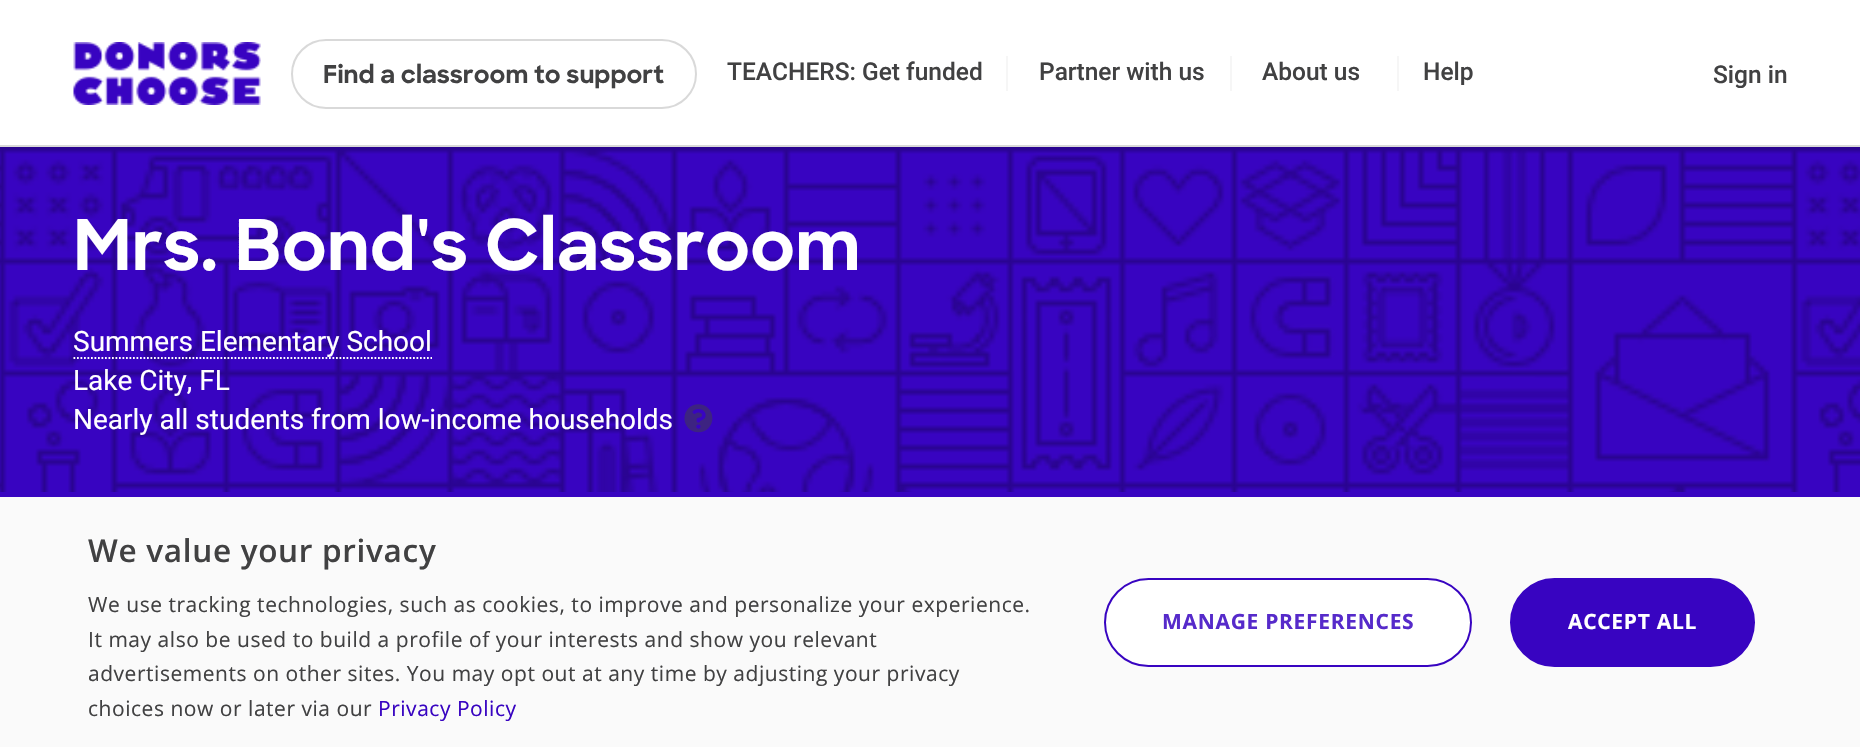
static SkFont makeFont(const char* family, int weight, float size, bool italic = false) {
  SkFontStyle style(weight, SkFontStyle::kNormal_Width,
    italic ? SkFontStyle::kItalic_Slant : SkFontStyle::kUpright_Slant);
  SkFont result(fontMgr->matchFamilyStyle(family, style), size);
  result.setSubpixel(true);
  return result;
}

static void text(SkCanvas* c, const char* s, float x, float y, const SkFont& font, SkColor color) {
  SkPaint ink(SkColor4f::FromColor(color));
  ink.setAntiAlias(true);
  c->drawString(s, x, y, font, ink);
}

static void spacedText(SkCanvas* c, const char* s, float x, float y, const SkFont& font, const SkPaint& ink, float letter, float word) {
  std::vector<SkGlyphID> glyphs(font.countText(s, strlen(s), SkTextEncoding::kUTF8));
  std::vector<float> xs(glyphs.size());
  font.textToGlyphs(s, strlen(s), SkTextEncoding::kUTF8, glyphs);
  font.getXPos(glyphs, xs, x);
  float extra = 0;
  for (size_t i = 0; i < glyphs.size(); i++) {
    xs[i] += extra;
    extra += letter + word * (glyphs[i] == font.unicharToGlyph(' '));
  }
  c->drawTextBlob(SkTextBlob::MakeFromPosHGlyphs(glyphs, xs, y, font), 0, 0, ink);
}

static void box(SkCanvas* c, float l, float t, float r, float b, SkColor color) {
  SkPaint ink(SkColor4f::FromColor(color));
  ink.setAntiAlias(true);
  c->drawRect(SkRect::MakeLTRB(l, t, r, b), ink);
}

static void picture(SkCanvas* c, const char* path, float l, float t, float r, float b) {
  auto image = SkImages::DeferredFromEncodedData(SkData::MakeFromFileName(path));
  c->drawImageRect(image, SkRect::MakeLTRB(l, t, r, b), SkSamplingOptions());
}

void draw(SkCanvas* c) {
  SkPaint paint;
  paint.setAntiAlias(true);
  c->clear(0xffffffff);
  box(c, 0, 145, 1860, 147, 0xffd9d9d9);
  picture(c, "img_01.png", 73, 42, 261, 105);
  paint.setStyle(SkPaint::kStroke_Style);
  paint.setStrokeWidth(2);
  paint.setColor(0xffd9d9d9);
  c->drawRoundRect(SkRect::MakeLTRB(292, 40, 696, 108), 34, 34, paint);
  SkFont face1 = makeFont("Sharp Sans", 700, 24.5f);
  text(c, "Find a classroom to support", 323, 83, face1, 0xff414142);
  box(c, 1006, 56, 1008, 91, 0xfff6f6f6);
  SkFont face2 = makeFont("Roboto", 500, 24.5f);
  text(c, "TEACHERS: Get funded", 727, 80, face2, 0xff414142);
  box(c, 1230, 56, 1232, 91, 0xfff6f6f6);
  text(c, "Partner with us", 1039, 80, face2, 0xff414142);
  text(c, "About us", 1262, 80, face2, 0xff414142);
  box(c, 1397, 56, 1399, 91, 0xfff6f6f6);
  text(c, "Help", 1423, 80, face2, 0xff414142);
  text(c, "Sign in", 1713, 83, face2, 0xff414142);
  box(c, 0, 147, 1860, 497, 0xff3804c1);
  picture(c, "img_02.png", 0, 147, 1860, 492);
  SkFont face3 = makeFont("Sharp Sans", 700, 70);
  text(c, "Mrs. Bond's Classroom", 73, 270, face3, 0xffffffff);
  SkFont face4 = makeFont("Roboto", 400, 28);
  text(c, "Summers Elementary School", 73, 351, face4, 0xffffffff);
  paint.setStrokeWidth(1.8f);
  paint.setColor(0xffffffff);
  paint.setPathEffect(SkDashPathEffect::Make({{1.75f, 1.75f}}, 0));
  c->drawPath(SkPathBuilder().moveTo(73.5f, 358).lineTo(432, 358).detach(), paint);
  paint.setPathEffect(nullptr);
  text(c, "Lake City, FL", 73, 390, face4, 0xffffffff);
  text(c, "Nearly all students from low‑income households", 73, 429, face4, 0xffffffff);
  picture(c, "img_03.png", 684, 404, 713, 433);
  box(c, 0, 497, 1860, 747, 0xfffafafa);
  SkFont face5 = makeFont("Open Sans", 600, 31.5f);
  paint.setStyle(SkPaint::kFill_Style);
  paint.setColor(0xff414142);
  spacedText(c, "We value your privacy", 88, 562, face5, paint, 0.7f, 0);
  SkFont face6 = makeFont("Open Sans", 400, 21);
  spacedText(c, "We use tracking technologies, such as cookies, to improve and personalize your experience.", 88, 612, face6, paint, 0.53f, 0);
  spacedText(c, "It may also be used to build a profile of your interests and show you relevant", 88, 647, face6, paint, 0.53f, 0);
  spacedText(c, "advertisements on other sites. You may opt out at any time by adjusting your privacy", 88, 681, face6, paint, 0.53f, 0);
  spacedText(c, "choices now or later via our", 88, 716, face6, paint, 0.53f, 0);
  paint.setColor(0xff3804c1);
  spacedText(c, "Privacy Policy", 378, 716, face6, paint, 0.53f, 0);
  paint.setColor(0xffffffff);
  c->drawRoundRect(SkRect::MakeLTRB(1105, 579, 1471, 666), 43.5f, 43.5f, paint);
  paint.setStyle(SkPaint::kStroke_Style);
  paint.setStrokeWidth(2);
  paint.setColor(0xff3804c1);
  c->drawRoundRect(SkRect::MakeLTRB(1105, 579, 1471, 666), 43.5f, 43.5f, paint);
  SkFont face7 = makeFont("Open Sans", 700, 21);
  paint.setStyle(SkPaint::kFill_Style);
  paint.setColor(0xff562aca);
  spacedText(c, "MANAGE PREFERENCES", 1162, 629, face7, paint, 0.7f, 0);
  paint.setColor(0xff3804c1);
  c->drawRoundRect(SkRect::MakeLTRB(1511, 579, 1754, 666), 43.5f, 43.5f, paint);
  paint.setStyle(SkPaint::kStroke_Style);
  c->drawRoundRect(SkRect::MakeLTRB(1511, 579, 1754, 666), 43.5f, 43.5f, paint);
  paint.setStyle(SkPaint::kFill_Style);
  paint.setColor(0xffffffff);
  spacedText(c, "ACCEPT ALL", 1568, 629, face7, paint, 0.7f, 0);
}
